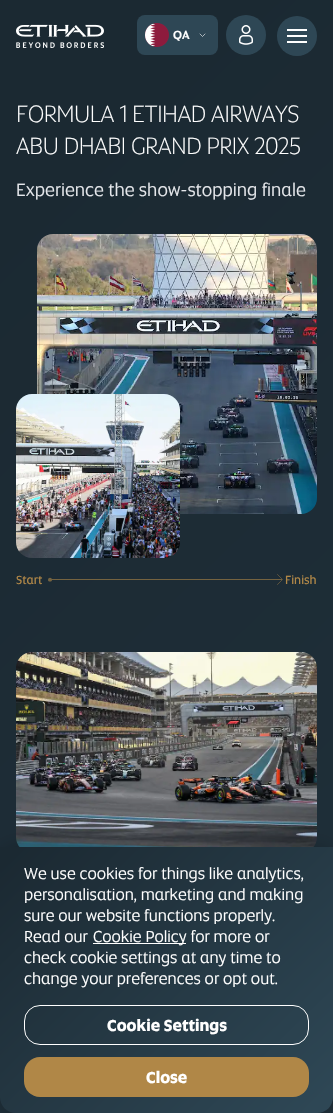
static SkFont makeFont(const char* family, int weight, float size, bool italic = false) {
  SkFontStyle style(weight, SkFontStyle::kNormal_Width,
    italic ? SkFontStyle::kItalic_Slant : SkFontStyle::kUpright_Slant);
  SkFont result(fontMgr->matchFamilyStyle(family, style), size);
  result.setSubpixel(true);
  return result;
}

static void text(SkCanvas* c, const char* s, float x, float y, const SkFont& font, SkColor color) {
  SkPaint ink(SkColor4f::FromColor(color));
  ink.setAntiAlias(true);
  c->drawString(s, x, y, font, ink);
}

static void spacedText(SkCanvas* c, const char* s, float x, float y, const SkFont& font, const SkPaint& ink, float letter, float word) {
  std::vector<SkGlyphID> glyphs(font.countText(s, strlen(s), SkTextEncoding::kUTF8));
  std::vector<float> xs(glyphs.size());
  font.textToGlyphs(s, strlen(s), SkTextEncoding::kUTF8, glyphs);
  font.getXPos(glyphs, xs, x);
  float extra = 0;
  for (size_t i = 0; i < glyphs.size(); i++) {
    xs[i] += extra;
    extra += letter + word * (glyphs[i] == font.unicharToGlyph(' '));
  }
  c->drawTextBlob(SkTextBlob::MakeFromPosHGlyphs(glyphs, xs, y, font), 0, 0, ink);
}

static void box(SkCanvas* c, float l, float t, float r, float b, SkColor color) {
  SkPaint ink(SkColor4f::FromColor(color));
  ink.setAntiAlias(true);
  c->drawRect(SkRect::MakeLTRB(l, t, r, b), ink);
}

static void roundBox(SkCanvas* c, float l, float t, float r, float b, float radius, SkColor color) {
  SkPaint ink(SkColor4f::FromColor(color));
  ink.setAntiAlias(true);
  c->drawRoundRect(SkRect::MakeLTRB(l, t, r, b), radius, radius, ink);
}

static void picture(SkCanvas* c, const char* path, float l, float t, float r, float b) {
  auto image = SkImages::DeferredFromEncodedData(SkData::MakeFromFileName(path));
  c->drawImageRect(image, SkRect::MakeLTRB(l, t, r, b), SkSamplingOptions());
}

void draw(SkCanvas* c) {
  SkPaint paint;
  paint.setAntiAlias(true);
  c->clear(0xffffffff);
  {
    const SkColor colors[] = {0xff1b2932, 0xff2e4755};
    const float stops[] = {0.03f, 0.96f};
    const SkPoint ends[] = {{-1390, 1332}, {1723, 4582}};
    paint.setShader(SkGradientShader::MakeLinear(ends, colors, stops, 2, SkTileMode::kClamp));
    paint.setAlpha(255);
  }
  c->drawRect(SkRect::MakeLTRB(0, 0, 333, 1113), paint);
  picture(c, "img_01.png", 16, 24, 104, 48);
  paint.setShader(nullptr);
  paint.setColor(0xff2e4755);
  c->drawCircle(297, 36, 20, paint);
  box(c, 287, 29, 307, 31, 0xffffffff);
  box(c, 287, 35, 307, 37, 0xffffffff);
  box(c, 287, 41, 307, 43, 0xffffffff);
  roundBox(c, 137, 15, 218, 55, 8, 0xff2e4755);
  picture(c, "img_02.png", 145, 23, 169, 47);
  SkFont face1 = makeFont("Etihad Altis", 500, 12);
  text(c, "QA", 173, 39, face1, 0xffffffff);
  paint.setStyle(SkPaint::kStroke_Style);
  paint.setStrokeWidth(0.6f);
  paint.setStrokeCap(SkPaint::kRound_Cap);
  paint.setStrokeJoin(SkPaint::kRound_Join);
  paint.setColor(0xffffffff);
  c->drawPath(SkPathBuilder().moveTo(200, 34).lineTo(202.5f, 36.5f).lineTo(205, 34).detach(), paint);
  paint.setStyle(SkPaint::kFill_Style);
  paint.setColor(0xff2e4755);
  c->drawCircle(246, 35, 20, paint);
  picture(c, "img_03.png", 239, 25, 253, 45);
  SkFont face2 = makeFont("Etihad Altis", 300, 24);
  paint.setColor(0xffffffff);
  spacedText(c, "FORMULA 1 ETIHAD AIRWAYS", 16, 122, face2, paint, -0.5f, 0);
  spacedText(c, "ABU DHABI GRAND PRIX 2025", 16, 154, face2, paint, -0.5f, 0);
  SkFont face3 = makeFont("Etihad Altis", 400, 18);
  text(c, "Experience the show-stopping finale", 16, 196, face3, 0xffe5e7eb);
  picture(c, "img_04.png", 37, 234, 317, 514);
  picture(c, "img_05.png", 16, 394, 180, 558);
  SkFont face4 = makeFont("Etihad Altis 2", 400, 12);
  text(c, "Start", 16, 584, face4, 0xffb08747);
  paint.setColor(0xff756340);
  c->drawPath(SkPathBuilder().moveTo(48, 580).cubicTo(48, 582, 52, 582, 52, 580).cubicTo(52, 577, 48, 577, 48, 580).close().moveTo(50, 580).lineTo(282, 580).lineTo(282, 579).lineTo(50, 579).close().detach(), paint);
  paint.setStyle(SkPaint::kStroke_Style);
  paint.setStrokeWidth(0.7f);
  c->drawPath(SkPathBuilder().moveTo(277.5f, 574.5f).lineTo(282.5f, 579.5f).lineTo(277.5f, 584.5f).detach(), paint);
  text(c, "Finish", 285, 584, face4, 0xffb08747);
  picture(c, "img_06.png", 16, 652, 317, 847);
  paint.setStyle(SkPaint::kFill_Style);
  paint.setColor(0x33000000);
  paint.setMaskFilter(SkMaskFilter::MakeBlur(kNormal_SkBlurStyle, 9));
  c->drawRoundRect(SkRect::MakeLTRB(0, 847, 333, 1113), 16, 16, paint);
  paint.setMaskFilter(nullptr);
  {
    const SkColor colors[] = {0xff1b2932, 0xff2e4755};
    const float stops[] = {0.03f, 0.96f};
    const SkPoint ends[] = {{20, 828}, {313, 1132}};
    paint.setShader(SkGradientShader::MakeLinear(ends, colors, stops, 2, SkTileMode::kClamp));
    paint.setAlpha(255);
  }
  c->drawPath(SkPathBuilder().moveTo(0, 847).lineTo(333, 847).lineTo(333, 1097).cubicTo(333, 1106, 326, 1113, 317, 1113).lineTo(16, 1113).cubicTo(7, 1113, 0, 1106, 0, 1097).close().detach(), paint);
  SkFont face5 = makeFont("Etihad Altis", 400, 16);
  text(c, "We use cookies for things like analytics,", 24, 879, face5, 0xffffffff);
  text(c, "personalisation, marketing and making", 24, 900, face5, 0xffffffff);
  text(c, "sure our website functions properly.", 24, 921, face5, 0xffffffff);
  text(c, "Read our", 24, 942, face5, 0xffffffff);
  box(c, 93, 943, 186, 944, 0xffffffff);
  text(c, "Cookie Policy for more or", 93, 942, face5, 0xffffffff);
  text(c, "check cookie settings at any time to", 24, 963, face5, 0xffffffff);
  text(c, "change your preferences or opt out.", 24, 984, face5, 0xffffffff);
  paint.setStyle(SkPaint::kStroke_Style);
  paint.setStrokeWidth(1);
  paint.setStrokeCap(SkPaint::kButt_Cap);
  paint.setStrokeJoin(SkPaint::kMiter_Join);
  paint.setShader(nullptr);
  paint.setColor(0xffffffff);
  c->drawRoundRect(SkRect::MakeLTRB(24.5f, 1005.5f, 308.5f, 1044.5f), 15.5f, 15.5f, paint);
  SkFont face6 = makeFont("Etihad Altis", 700, 16);
  text(c, "Cookie Settings", 107, 1031, face6, 0xffffffff);
  roundBox(c, 24, 1057, 309, 1097, 16, 0xffb08747);
  text(c, "Close", 146, 1083, face6, 0xffffffff);
}
